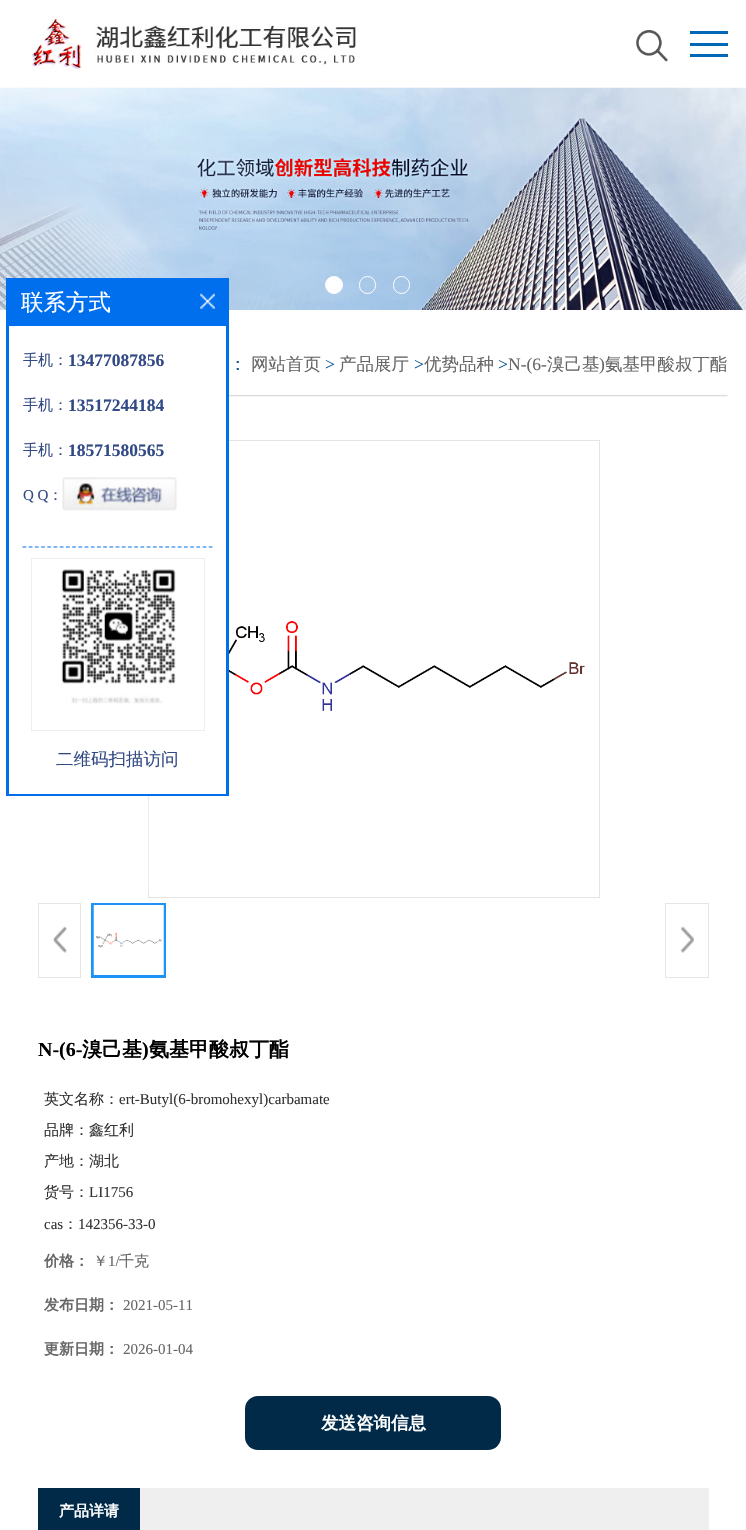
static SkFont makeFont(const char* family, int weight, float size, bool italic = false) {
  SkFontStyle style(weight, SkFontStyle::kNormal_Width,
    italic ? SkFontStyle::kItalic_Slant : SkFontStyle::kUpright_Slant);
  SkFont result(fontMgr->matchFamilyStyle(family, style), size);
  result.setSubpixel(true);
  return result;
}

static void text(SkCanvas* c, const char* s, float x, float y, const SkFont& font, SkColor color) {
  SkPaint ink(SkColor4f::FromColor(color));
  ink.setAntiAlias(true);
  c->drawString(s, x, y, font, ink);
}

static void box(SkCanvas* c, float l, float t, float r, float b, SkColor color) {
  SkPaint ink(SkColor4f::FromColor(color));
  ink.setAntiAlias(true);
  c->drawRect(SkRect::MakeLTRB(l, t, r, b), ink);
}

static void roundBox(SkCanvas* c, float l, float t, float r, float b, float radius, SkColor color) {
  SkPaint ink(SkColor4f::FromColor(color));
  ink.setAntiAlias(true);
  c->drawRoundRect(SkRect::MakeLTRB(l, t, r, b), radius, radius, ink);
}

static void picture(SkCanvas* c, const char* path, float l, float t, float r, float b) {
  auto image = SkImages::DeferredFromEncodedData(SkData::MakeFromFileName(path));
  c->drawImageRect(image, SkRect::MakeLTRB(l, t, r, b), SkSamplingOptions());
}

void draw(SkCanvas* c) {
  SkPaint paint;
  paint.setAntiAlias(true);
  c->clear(0xffffffff);
  picture(c, "img_01.png", 31, 18, 356, 70);
  picture(c, "img_02.png", 636, 30, 668, 62);
  box(c, 690, 31, 728, 34, 0xff0067b6);
  box(c, 690, 43, 728, 46, 0xff0067b6);
  box(c, 690, 54, 728, 57, 0xff0067b6);
  picture(c, "img_03.png", 0, 87, 746, 310);
  paint.setColor(0xffffffff);
  c->drawCircle(334, 285, 8.5f, paint);
  paint.setStyle(SkPaint::kStroke_Style);
  paint.setStrokeWidth(1);
  c->drawCircle(334, 285, 8.5f, paint);
  c->drawRoundRect(SkRect::MakeLTRB(359.5f, 276.5f, 375.5f, 293.5f), 8, 8, paint);
  c->drawRoundRect(SkRect::MakeLTRB(393.5f, 276.5f, 409.5f, 293.5f), 8, 8, paint);
  paint.setColor(0xffe4e4e4);
  c->drawRect(SkRect::MakeLTRB(148.5f, 440.5f, 599.5f, 897.5f), paint);
  picture(c, "img_08.png", 148, 441, 585, 891);
  box(c, 6, 278, 229, 796, 0xff006fed);
  SkFont face1 = makeFont("WenQuanYi Zen Hei", 500, 22.5f);
  text(c, "联系方式", 21, 310, face1, 0xffffffff);
  picture(c, "img_04.png", 200, 293, 215, 309);
  box(c, 9, 326, 226, 794, 0xffffffff);
  paint.setStrokeWidth(1.2f);
  paint.setColor(0xff006fed);
  paint.setPathEffect(SkDashPathEffect::Make({{3.75f, 2.46f}}, 0));
  c->drawPath(SkPathBuilder().moveTo(22.5f, 547).lineTo(212.5f, 547).detach(), paint);
  paint.setPathEffect(nullptr);
  SkFont face2 = makeFont("WenQuanYi Zen Hei", 500, 15);
  text(c, "手机：", 23, 365, face2, 0xff314985);
  SkFont face3 = makeFont("Liberation Serif", 700, 17.5f);
  text(c, "13477087856", 68, 366, face3, 0xff314985);
  text(c, "手机：", 23, 410, face2, 0xff314985);
  text(c, "13517244184", 68, 411, face3, 0xff314985);
  text(c, "手机：", 23, 455, face2, 0xff314985);
  text(c, "18571580565", 68, 456, face3, 0xff314985);
  SkFont face4 = makeFont("Liberation Serif", 400, 15);
  text(c, "Q Q", 23, 500, face4, 0xff314985);
  text(c, "：", 48, 500, face2, 0xff314985);
  picture(c, "img_05.png", 62, 477, 177, 511);
  paint.setStrokeWidth(1);
  paint.setColor(0xffeeeeee);
  c->drawRect(SkRect::MakeLTRB(31.5f, 558.5f, 204.5f, 730.5f), paint);
  picture(c, "img_06.png", 61, 569, 176, 704);
  SkFont face5 = makeFont("WenQuanYi Zen Hei", 500, 17.5f);
  text(c, "二维码扫描访问", 56, 765, face5, 0xff314985);
  picture(c, "img_07.png", 229, 392, 728, 397);
  text(c, "：", 229, 370, face5, 0xff0c548c);
  text(c, "网站首页", 251, 370, face5, 0xff666666);
  SkFont face6 = makeFont("Liberation Serif", 400, 17.5f);
  text(c, ">", 325, 370, face6, 0xff0c548c);
  text(c, "产品展厅", 339, 370, face5, 0xff666666);
  text(c, ">", 414, 370, face6, 0xff0c548c);
  text(c, "优势品种", 424, 370, face5, 0xff666666);
  text(c, ">", 498, 370, face6, 0xff0c548c);
  text(c, "N-(6-", 508, 370, face6, 0xff666666);
  text(c, "溴己基", 547, 370, face5, 0xff666666);
  text(c, ")", 599, 370, face6, 0xff666666);
  text(c, "氨基甲酸叔丁酯", 605, 370, face5, 0xff666666);
  picture(c, "img_09.png", 53, 926, 67, 953);
  paint.setColor(0xffe5e5e5);
  c->drawRect(SkRect::MakeLTRB(38.5f, 903.5f, 80.5f, 977.5f), paint);
  paint.setStrokeWidth(3);
  paint.setColor(0xff1b94f6);
  c->drawRect(SkRect::MakeLTRB(92.5f, 904.5f, 164.5f, 976.5f), paint);
  picture(c, "img_10.png", 93, 905, 164, 975);
  picture(c, "img_11.png", 681, 926, 694, 953);
  paint.setStrokeWidth(1);
  paint.setColor(0xffe5e5e5);
  c->drawRect(SkRect::MakeLTRB(665.5f, 903.5f, 708.5f, 977.5f), paint);
  SkFont face7 = makeFont("Liberation Serif", 700, 20);
  text(c, "N-(6-", 38, 1056, face7, 0xff000000);
  SkFont face8 = makeFont("WenQuanYi Zen Hei", 700, 20);
  text(c, "溴己基", 82, 1056, face8, 0xff000000);
  text(c, ")", 142, 1056, face7, 0xff000000);
  text(c, "氨基甲酸叔丁酯", 149, 1056, face8, 0xff000000);
  text(c, "英文名称：", 44, 1104, face2, 0xff333333);
  text(c, "ert-Butyl(6-bromohexyl)carbamate", 119, 1104, face4, 0xff333333);
  text(c, "品牌：鑫红利", 44, 1135, face2, 0xff333333);
  text(c, "产地：湖北", 44, 1166, face2, 0xff333333);
  text(c, "货号：", 44, 1197, face2, 0xff333333);
  text(c, "LI1756", 89, 1197, face4, 0xff333333);
  text(c, "cas", 44, 1229, face4, 0xff333333);
  text(c, "：", 63, 1229, face2, 0xff333333);
  text(c, "142356-33-0", 78, 1229, face4, 0xff333333);
  SkFont face9 = makeFont("WenQuanYi Zen Hei", 700, 15);
  text(c, "价格：", 44, 1266, face9, 0xff666666);
  text(c, "￥", 93, 1266, face2, 0xff666666);
  text(c, "1/", 108, 1266, face4, 0xff666666);
  text(c, "千克", 119, 1266, face2, 0xff666666);
  text(c, "发布日期：", 44, 1310, face9, 0xff666666);
  text(c, "2021-05-11", 123, 1310, face4, 0xff666666);
  text(c, "更新日期：", 44, 1354, face9, 0xff666666);
  text(c, "2026-01-04", 123, 1354, face4, 0xff666666);
  roundBox(c, 245, 1396, 501, 1450, 13, 0xff002a48);
  SkFont face10 = makeFont("WenQuanYi Zen Hei", 700, 17.5f);
  text(c, "发送咨询信息", 321, 1429, face10, 0xffffffff);
  box(c, 140, 1488, 709, 1530, 0xffefefef);
  box(c, 38, 1488, 140, 1530, 0xff002a48);
  text(c, "产品详请", 59, 1516, face9, 0xffffffff);
}
